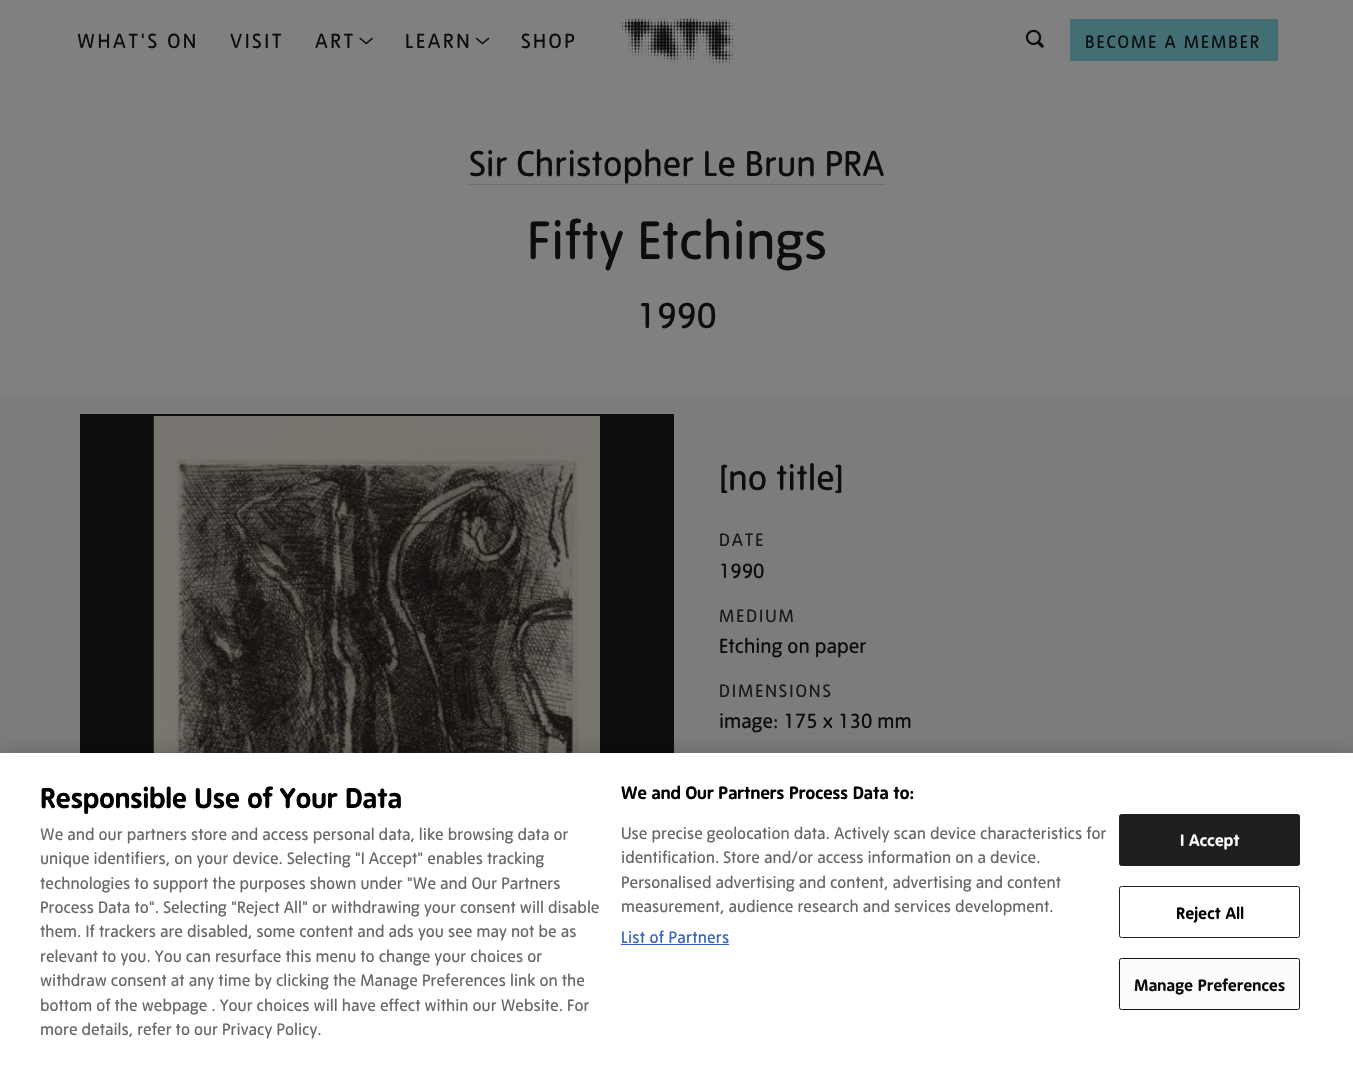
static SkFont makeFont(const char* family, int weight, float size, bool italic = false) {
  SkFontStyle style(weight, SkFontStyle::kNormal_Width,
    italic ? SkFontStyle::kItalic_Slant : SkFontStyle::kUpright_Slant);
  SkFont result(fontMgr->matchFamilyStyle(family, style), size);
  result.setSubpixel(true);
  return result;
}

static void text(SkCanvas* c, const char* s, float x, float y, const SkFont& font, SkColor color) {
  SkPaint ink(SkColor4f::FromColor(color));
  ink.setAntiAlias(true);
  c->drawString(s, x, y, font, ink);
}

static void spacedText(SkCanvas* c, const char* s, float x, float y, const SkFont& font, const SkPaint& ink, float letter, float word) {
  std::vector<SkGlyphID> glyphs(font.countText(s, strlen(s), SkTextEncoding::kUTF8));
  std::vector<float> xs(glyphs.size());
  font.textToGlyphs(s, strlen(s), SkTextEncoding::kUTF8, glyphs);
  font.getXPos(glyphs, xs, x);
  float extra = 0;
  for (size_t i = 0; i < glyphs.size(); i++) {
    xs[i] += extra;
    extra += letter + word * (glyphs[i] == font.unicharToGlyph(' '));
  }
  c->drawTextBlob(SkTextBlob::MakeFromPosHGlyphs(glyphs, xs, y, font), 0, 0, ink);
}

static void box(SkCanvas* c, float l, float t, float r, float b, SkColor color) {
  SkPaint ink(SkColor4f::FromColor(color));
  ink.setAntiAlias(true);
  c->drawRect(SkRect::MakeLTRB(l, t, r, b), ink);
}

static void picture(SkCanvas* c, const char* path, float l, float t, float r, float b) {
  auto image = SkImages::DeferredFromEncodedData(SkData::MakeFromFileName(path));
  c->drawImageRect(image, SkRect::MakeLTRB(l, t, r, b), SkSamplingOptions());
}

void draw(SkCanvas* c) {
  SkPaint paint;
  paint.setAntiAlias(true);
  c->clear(0xff808080);
  SkFont face1 = makeFont("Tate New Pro", 400, 20);
  paint.setColor(0xff0d0d0d);
  spacedText(c, "WHAT'S ON", 77, 48, face1, paint, 2.5f, 0);
  spacedText(c, "VISIT", 230, 48, face1, paint, 2.5f, 0);
  spacedText(c, "ART", 315, 48, face1, paint, 2.5f, 0);
  picture(c, "img_01.png", 359, 37, 373, 45);
  spacedText(c, "LEARN", 405, 48, face1, paint, 2.5f, 0);
  picture(c, "img_02.png", 475, 37, 490, 45);
  spacedText(c, "SHOP", 521, 48, face1, paint, 2.5f, 0);
  picture(c, "img_03.png", 622, 18, 733, 63);
  picture(c, "img_04.png", 1025, 29, 1044, 48);
  box(c, 1070, 19, 1278, 61, 0xff436f74);
  SkFont face2 = makeFont("Tate New Pro", 400, 17.5f);
  spacedText(c, "BECOME A MEMBER", 1085, 48, face2, paint, 1.9f, 0);
  SkFont face3 = makeFont("Tate New Pro", 400, 35);
  text(c, "Sir Christopher Le Brun PRA", 469, 176, face3, 0xff0d0d0d);
  box(c, 469, 184, 885, 185, 0xff6f6f6f);
  SkFont face4 = makeFont("Tate New Pro", 400, 52.5f);
  text(c, "Fifty Etchings", 527, 259, face4, 0xff0d0d0d);
  text(c, "1990", 637, 328, face3, 0xff0d0d0d);
  box(c, 0, 394, 1353, 753, 0xff7c7c7c);
  box(c, 80, 414, 674, 753, 0xff0d0d0d);
  picture(c, "img_05.png", 153, 416, 600, 753);
  text(c, "[no title]", 719, 490, face3, 0xff0d0d0d);
  paint.setColor(0xff191919);
  spacedText(c, "DATE", 719, 546, face2, paint, 1.9f, 0);
  text(c, "1990", 719, 578, face1, 0xff0d0d0d);
  spacedText(c, "MEDIUM", 719, 622, face2, paint, 1.9f, 0);
  text(c, "Etching on paper", 719, 653, face1, 0xff0d0d0d);
  spacedText(c, "DIMENSIONS", 719, 697, face2, paint, 1.9f, 0);
  text(c, "image: 175 x 130 mm", 719, 728, face1, 0xff0d0d0d);
  paint.setColor(0x33000000);
  paint.setMaskFilter(SkMaskFilter::MakeBlur(kNormal_SkBlurStyle, 11));
  c->drawRect(SkRect::MakeLTRB(0, 753, 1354, 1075), paint);
  paint.setMaskFilter(nullptr);
  box(c, 0, 753, 1353, 1074, 0xffffffff);
  SkFont face5 = makeFont("Tate New Pro", 700, 28);
  text(c, "Responsible Use of Your Data", 40, 808, face5, 0xff000000);
  SkFont face6 = makeFont("Tate New Pro", 700, 17.6f);
  text(c, "We and Our Partners Process Data to:", 621, 799, face6, 0xff000000);
  SkFont face7 = makeFont("Tate New Pro", 400, 16.25f);
  text(c, "Use precise geolocation data. Actively scan device characteristics for", 621, 839, face7, 0xff696969);
  text(c, "identification. Store and/or access information on a device.", 621, 863, face7, 0xff696969);
  text(c, "Personalised advertising and content, advertising and content", 621, 888, face7, 0xff696969);
  text(c, "measurement, audience research and services development.", 621, 912, face7, 0xff696969);
  paint.setColor(0xff3860be);
  spacedText(c, "List of Partners", 621, 943, face7, paint, 0.2f, 0);
  box(c, 621, 944, 729, 945, 0xff3860be);
  text(c, "We and our partners store and access personal data, like browsing data or", 40, 840, face7, 0xff696969);
  text(c, "unique identifiers, on your device. Selecting \"I Accept\" enables tracking", 40, 864, face7, 0xff696969);
  text(c, "technologies to support the purposes shown under \"We and Our Partners", 40, 889, face7, 0xff696969);
  text(c, "Process Data to\". Selecting \"Reject All\" or withdrawing your consent will disable", 40, 913, face7, 0xff696969);
  text(c, "them. If trackers are disabled, some content and ads you see may not be as", 40, 937, face7, 0xff696969);
  text(c, "relevant to you. You can resurface this menu to change your choices or", 40, 962, face7, 0xff696969);
  text(c, "withdraw consent at any time by clicking the Manage Preferences link on the", 40, 986, face7, 0xff696969);
  text(c, "bottom of the webpage . Your choices will have effect within our Website. For", 40, 1011, face7, 0xff696969);
  text(c, "more details, refer to our Privacy Policy.", 40, 1035, face7, 0xff696969);
  paint.setColor(0xff1f1f1f);
  c->drawRoundRect(SkRect::MakeLTRB(1119.5f, 814.5f, 1299.5f, 865.5f), 2, 2, paint);
  paint.setStyle(SkPaint::kStroke_Style);
  paint.setStrokeWidth(1);
  c->drawRoundRect(SkRect::MakeLTRB(1119.5f, 814.5f, 1299.5f, 865.5f), 2, 2, paint);
  SkFont face8 = makeFont("Tate New Pro", 700, 16.25f);
  paint.setStyle(SkPaint::kFill_Style);
  paint.setColor(0xffffffff);
  spacedText(c, "I Accept", 1180, 846, face8, paint, 0.2f, 0);
  paint.setStyle(SkPaint::kStroke_Style);
  paint.setColor(0xff1f1f1f);
  c->drawRoundRect(SkRect::MakeLTRB(1119.5f, 886.5f, 1299.5f, 937.5f), 2, 2, paint);
  paint.setStyle(SkPaint::kFill_Style);
  paint.setColor(0xff000000);
  spacedText(c, "Reject All", 1176, 919, face8, paint, 0.2f, 0);
  paint.setColor(0xfffcfcfc);
  c->drawRoundRect(SkRect::MakeLTRB(1119.5f, 958.5f, 1299.5f, 1009.5f), 2, 2, paint);
  paint.setStyle(SkPaint::kStroke_Style);
  paint.setColor(0xff111212);
  c->drawRoundRect(SkRect::MakeLTRB(1119.5f, 958.5f, 1299.5f, 1009.5f), 2, 2, paint);
  paint.setStyle(SkPaint::kFill_Style);
  paint.setColor(0xff0d0d0d);
  spacedText(c, "Manage Preferences", 1134, 991, face8, paint, 0.2f, 0);
}
